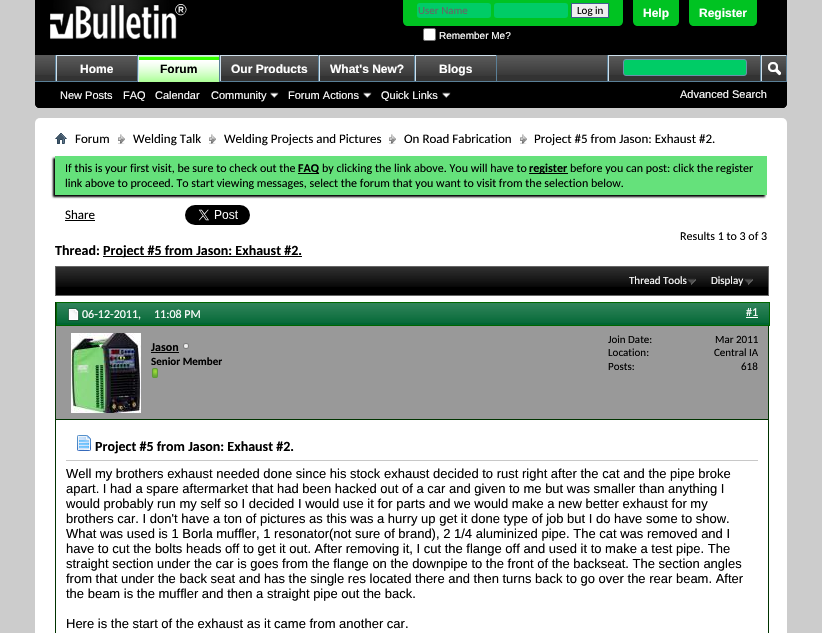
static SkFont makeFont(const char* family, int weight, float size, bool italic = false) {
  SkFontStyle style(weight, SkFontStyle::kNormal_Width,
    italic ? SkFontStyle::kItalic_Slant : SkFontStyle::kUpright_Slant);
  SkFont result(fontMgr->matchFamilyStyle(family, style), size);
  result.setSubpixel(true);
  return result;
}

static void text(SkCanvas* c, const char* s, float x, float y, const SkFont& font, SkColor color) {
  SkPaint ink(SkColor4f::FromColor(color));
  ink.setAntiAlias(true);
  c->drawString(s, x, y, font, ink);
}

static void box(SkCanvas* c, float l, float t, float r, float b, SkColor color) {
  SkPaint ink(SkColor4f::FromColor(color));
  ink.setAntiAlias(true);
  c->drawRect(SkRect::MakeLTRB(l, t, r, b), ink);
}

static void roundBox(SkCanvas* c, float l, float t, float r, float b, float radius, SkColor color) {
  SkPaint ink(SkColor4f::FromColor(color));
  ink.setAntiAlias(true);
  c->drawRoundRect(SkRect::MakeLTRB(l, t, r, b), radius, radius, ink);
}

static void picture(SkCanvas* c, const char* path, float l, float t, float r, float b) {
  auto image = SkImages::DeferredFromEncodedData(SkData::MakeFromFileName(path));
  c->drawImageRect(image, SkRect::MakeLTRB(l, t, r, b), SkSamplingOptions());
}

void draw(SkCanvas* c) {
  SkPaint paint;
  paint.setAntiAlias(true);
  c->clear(0xffcccccc);
  paint.setColor(0xff000000);
  c->drawPath(SkPathBuilder().moveTo(35, 0).lineTo(787, 0).lineTo(787, 103).cubicTo(787, 106, 785, 108, 782, 108).lineTo(40, 108).cubicTo(37, 108, 35, 106, 35, 103).close().detach(), paint);
  picture(c, "img_01.png", 50, 0, 187, 39);
  paint.setColor(0xff00c322);
  c->drawPath(SkPathBuilder().moveTo(403, 0).lineTo(623, 0).lineTo(623, 21).cubicTo(623, 24, 621, 26, 618, 26).lineTo(408, 26).cubicTo(405, 26, 403, 24, 403, 21).close().detach(), paint);
  roundBox(c, 417, 3, 491, 18, 3, 0xff00cc66);
  SkFont face1 = makeFont("Carlito", 400, 11);
  text(c, "User Name", 418, 14, face1, 0xff666666);
  roundBox(c, 494, 3, 568, 18, 3, 0xff00cc66);
  paint.setColor(0xffefefef);
  c->drawRect(SkRect::MakeLTRB(571.5f, 3.5f, 608.5f, 17.5f), paint);
  paint.setStyle(SkPaint::kStroke_Style);
  paint.setStrokeWidth(1);
  paint.setColor(0xff415d8d);
  c->drawRect(SkRect::MakeLTRB(571.5f, 3.5f, 608.5f, 17.5f), paint);
  text(c, "Log in", 577, 14, face1, 0xff000000);
  paint.setStyle(SkPaint::kFill_Style);
  paint.setColor(0xffffffff);
  c->drawRoundRect(SkRect::MakeLTRB(423.5f, 28.5f, 435.5f, 40.5f), 1.5f, 1.5f, paint);
  paint.setStyle(SkPaint::kStroke_Style);
  paint.setColor(0xff767676);
  c->drawRoundRect(SkRect::MakeLTRB(423.5f, 28.5f, 435.5f, 40.5f), 1.5f, 1.5f, paint);
  SkFont face2 = makeFont("Liberation Sans", 400, 10);
  text(c, "Remember Me?", 439, 39, face2, 0xffffffff);
  paint.setStyle(SkPaint::kFill_Style);
  paint.setColor(0xff00c322);
  c->drawPath(SkPathBuilder().moveTo(633, 0).lineTo(679, 0).lineTo(679, 21).cubicTo(679, 24, 677, 26, 674, 26).lineTo(638, 26).cubicTo(635, 26, 633, 24, 633, 21).close().detach(), paint);
  SkFont face3 = makeFont("Liberation Sans", 700, 12);
  text(c, "Help", 643, 17, face3, 0xffffffff);
  c->drawPath(SkPathBuilder().moveTo(689, 0).lineTo(757, 0).lineTo(757, 21).cubicTo(757, 24, 755, 26, 752, 26).lineTo(694, 26).cubicTo(691, 26, 689, 24, 689, 21).close().detach(), paint);
  text(c, "Register", 699, 17, face3, 0xffffffff);
  paint.setColor(0xff000000);
  c->drawPath(SkPathBuilder().moveTo(35, 55).lineTo(787, 55).lineTo(787, 103).cubicTo(787, 106, 785, 108, 782, 108).lineTo(40, 108).cubicTo(37, 108, 35, 106, 35, 103).close().detach(), paint);
  box(c, 35, 55, 786, 81, 0xff333333);
  picture(c, "img_02.png", 35, 55, 786, 75);
  box(c, 137, 55, 138, 82, 0xff5a7f97);
  box(c, 55, 55, 56, 82, 0xff5a7f97);
  box(c, 57, 56, 137, 75, 0xff333333);
  picture(c, "img_03.png", 57, 56, 137, 76);
  box(c, 56, 55, 137, 56, 0xffcedfeb);
  box(c, 56, 55, 57, 82, 0xffcedfeb);
  text(c, "Home", 80, 73, face3, 0xffffffff);
  box(c, 219, 55, 220, 81, 0xff5a7f97);
  box(c, 318, 55, 319, 82, 0xff5a7f97);
  box(c, 220, 55, 318, 56, 0xffcedfeb);
  box(c, 220, 55, 221, 82, 0xffcedfeb);
  box(c, 414, 55, 415, 82, 0xff5a7f97);
  box(c, 319, 55, 414, 56, 0xffcedfeb);
  box(c, 319, 55, 320, 82, 0xffcedfeb);
  box(c, 496, 55, 497, 82, 0xff5a7f97);
  box(c, 415, 55, 496, 56, 0xffcedfeb);
  box(c, 415, 55, 416, 82, 0xffcedfeb);
  box(c, 35, 81, 787, 82, 0xff5a7f97);
  box(c, 139, 56, 219, 82, 0xff33ff00);
  picture(c, "img_04.png", 139, 56, 219, 82);
  box(c, 138, 55, 219, 56, 0xffcedfeb);
  box(c, 138, 55, 139, 82, 0xffcedfeb);
  text(c, "Forum", 160, 73, face3, 0xff000000);
  box(c, 221, 56, 318, 75, 0xff333333);
  picture(c, "img_05.png", 221, 56, 318, 76);
  text(c, "Our Products", 231, 73, face3, 0xffffffff);
  box(c, 320, 56, 414, 75, 0xff333333);
  picture(c, "img_06.png", 320, 56, 414, 76);
  text(c, "What's New?", 330, 73, face3, 0xffffffff);
  box(c, 416, 56, 496, 75, 0xff333333);
  picture(c, "img_03.png", 416, 56, 496, 76);
  text(c, "Blogs", 439, 73, face3, 0xffffffff);
  SkFont face4 = makeFont("Liberation Sans", 400, 11);
  text(c, "New Posts", 60, 99, face4, 0xffffffff);
  text(c, "FAQ", 123, 99, face4, 0xffffffff);
  text(c, "Calendar", 155, 99, face4, 0xffffffff);
  text(c, "Community", 211, 99, face4, 0xffffffff);
  picture(c, "img_07.png", 270, 92, 279, 98);
  text(c, "Forum Actions", 288, 99, face4, 0xffffffff);
  picture(c, "img_07.png", 363, 92, 372, 98);
  text(c, "Quick Links", 381, 99, face4, 0xffffffff);
  picture(c, "img_07.png", 442, 92, 451, 98);
  box(c, 607, 55, 608, 81, 0xff5a7f97);
  box(c, 608, 55, 760, 56, 0xffcedfeb);
  box(c, 608, 55, 609, 81, 0xffcedfeb);
  paint.setColor(0xff00cc66);
  c->drawRoundRect(SkRect::MakeLTRB(623.5f, 59.5f, 746.5f, 75.5f), 2.5f, 2.5f, paint);
  paint.setStyle(SkPaint::kStroke_Style);
  paint.setColor(0xff6b91ab);
  c->drawRoundRect(SkRect::MakeLTRB(623.5f, 59.5f, 746.5f, 75.5f), 2.5f, 2.5f, paint);
  box(c, 786, 55, 787, 81, 0xff5a7f97);
  box(c, 760, 55, 761, 81, 0xff5a7f97);
  box(c, 761, 55, 786, 56, 0xffcedfeb);
  box(c, 761, 55, 762, 81, 0xffcedfeb);
  picture(c, "img_08.png", 768, 62, 781, 76);
  text(c, "Advanced Search", 680, 98, face4, 0xffffffff);
  roundBox(c, 35, 118, 787, 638, 5, 0xffffffff);
  picture(c, "img_09.png", 55, 133, 67, 144);
  picture(c, "img_10.png", 118, 134, 125, 144);
  SkFont face5 = makeFont("Carlito", 400, 13);
  text(c, "Forum", 75, 143, face5, 0xff000000);
  picture(c, "img_10.png", 209, 134, 216, 144);
  text(c, "Welding Talk", 133, 143, face5, 0xff000000);
  picture(c, "img_10.png", 389, 134, 396, 144);
  text(c, "Welding Projects and Pictures", 224, 143, face5, 0xff000000);
  picture(c, "img_10.png", 520, 134, 527, 144);
  text(c, "On Road Fabrication", 404, 143, face5, 0xff000000);
  text(c, "Project #5 from Jason: Exhaust #2.", 534, 143, face5, 0xff000000);
  paint.setStyle(SkPaint::kFill_Style);
  paint.setColor(0xff000000);
  paint.setMaskFilter(SkMaskFilter::MakeBlur(kNormal_SkBlurStyle, 1));
  c->drawRect(SkRect::MakeLTRB(53, 158, 765, 197), paint);
  paint.setMaskFilter(nullptr);
  box(c, 55, 156, 767, 195, 0xff65e17b);
  SkFont face6 = makeFont("Carlito", 400, 12);
  text(c, "If this is your first visit, be sure to check out the", 65, 172, face6, 0xff000000);
  box(c, 298, 173, 319, 174, 0xff000000);
  SkFont face7 = makeFont("Carlito", 700, 12);
  text(c, "FAQ", 298, 172, face7, 0xff000000);
  text(c, "by clicking the link above. You will have to", 322, 172, face6, 0xff000000);
  box(c, 529, 173, 568, 174, 0xff000000);
  text(c, "register", 529, 172, face7, 0xff000000);
  text(c, "before you can post: click the register", 570, 172, face6, 0xff000000);
  text(c, "link above to proceed. To start viewing messages, select the forum that you want to visit from the selection below.", 65, 187, face6, 0xff000000);
  text(c, "Share", 65, 219, face5, 0xff000000);
  box(c, 65, 220, 95, 221, 0xff000000);
  picture(c, "img_11.png", 185, 205, 250, 225);
  text(c, "Results 1 to 3 of 3", 680, 240, face6, 0xff000000);
  SkFont face8 = makeFont("Carlito", 700, 14);
  text(c, "Thread:", 55, 255, face8, 0xff000000);
  box(c, 103, 256, 302, 257, 0xff000000);
  text(c, "Project #5 from Jason: Exhaust #2.", 103, 255, face8, 0xff000000);
  box(c, 56, 267, 768, 295, 0xff000000);
  picture(c, "img_12.png", 56, 267, 768, 287);
  paint.setStyle(SkPaint::kStroke_Style);
  paint.setColor(0xff666666);
  c->drawRect(SkRect::MakeLTRB(55.5f, 266.5f, 768.5f, 295.5f), paint);
  picture(c, "img_13.png", 687, 278, 696, 285);
  text(c, "Thread Tools", 629, 284, face1, 0xffffffff);
  picture(c, "img_13.png", 744, 278, 753, 285);
  text(c, "Display", 711, 284, face1, 0xffffffff);
  paint.setColor(0xff003300);
  c->drawRect(SkRect::MakeLTRB(55.5f, 302.5f, 768.5f, 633.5f), paint);
  box(c, 57, 303, 769, 325, 0xff006633);
  picture(c, "img_14.png", 57, 303, 769, 323);
  paint.setColor(0xff006600);
  c->drawRect(SkRect::MakeLTRB(56.5f, 302.5f, 769.5f, 325.5f), paint);
  picture(c, "img_15.png", 68, 308, 79, 321);
  text(c, "06-12-2011,", 82, 318, face6, 0xffffffff);
  text(c, "11:08 PM", 154, 318, face6, 0xffffffff);
  text(c, "#1", 746, 316, face6, 0xffffffff);
  box(c, 746, 317, 758, 318, 0xffffffff);
  box(c, 56, 326, 768, 419, 0xff999999);
  box(c, 56, 419, 768, 420, 0xff003300);
  picture(c, "img_16.png", 71, 333, 141, 413);
  text(c, "Jason", 151, 351, face7, 0xff000000);
  box(c, 151, 352, 179, 353, 0xff000000);
  picture(c, "img_17.png", 183, 343, 189, 349);
  SkFont face9 = makeFont("Carlito", 700, 11);
  text(c, "Senior Member", 151, 365, face9, 0xff000000);
  picture(c, "img_18.png", 151, 368, 158, 378);
  text(c, "Join Date:", 608, 343, face1, 0xff000000);
  text(c, "Mar 2011", 715, 343, face1, 0xff000000);
  text(c, "Location:", 608, 356, face1, 0xff000000);
  text(c, "Central IA", 714, 356, face1, 0xff000000);
  text(c, "Posts:", 608, 370, face1, 0xff000000);
  text(c, "618", 741, 370, face1, 0xff000000);
  box(c, 66, 460, 758, 461, 0xffc8c8c8);
  picture(c, "img_19.png", 77, 435, 91, 451);
  text(c, "Project #5 from Jason: Exhaust #2.", 95, 451, face8, 0xff000000);
  SkFont face10 = makeFont("Liberation Sans", 400, 13);
  text(c, "Well my brothers exhaust needed done since his stock exhaust decided to rust right after the cat and the pipe broke", 66, 478, face10, 0xff000000);
  text(c, "apart. I had a spare aftermarket that had been hacked out of a car and given to me but was smaller than anything I", 66, 493, face10, 0xff000000);
  text(c, "would probably run my self so I decided I would use it for parts and we would make a new better exhaust for my", 66, 508, face10, 0xff000000);
  text(c, "brothers car. I don't have a ton of pictures as this was a hurry up get it done type of job but I do have some to show.", 66, 523, face10, 0xff000000);
  text(c, "What was used is 1 Borla muffler, 1 resonator(not sure of brand), 2 1/4 aluminized pipe. The cat was removed and I", 66, 538, face10, 0xff000000);
  text(c, "have to cut the bolts heads off to get it out. After removing it, I cut the flange off and used it to make a test pipe. The", 66, 553, face10, 0xff000000);
  text(c, "straight section under the car is goes from the flange on the downpipe to the front of the backseat. The section angles", 66, 568, face10, 0xff000000);
  text(c, "from that under the back seat and has the single res located there and then turns back to go over the rear beam. After", 66, 583, face10, 0xff000000);
  text(c, "the beam is the muffler and then a straight pipe out the back.", 66, 598, face10, 0xff000000);
  text(c, "Here is the start of the exhaust as it came from another car.", 66, 628, face10, 0xff000000);
}
